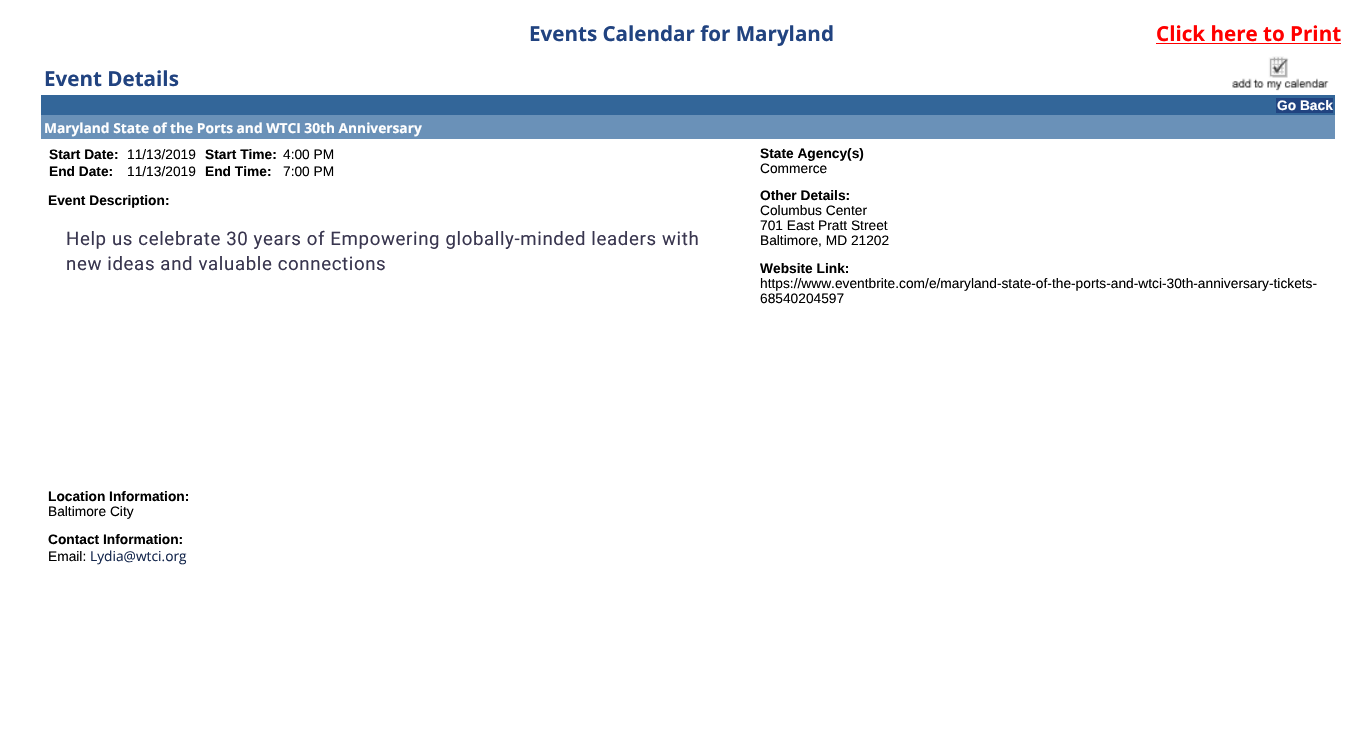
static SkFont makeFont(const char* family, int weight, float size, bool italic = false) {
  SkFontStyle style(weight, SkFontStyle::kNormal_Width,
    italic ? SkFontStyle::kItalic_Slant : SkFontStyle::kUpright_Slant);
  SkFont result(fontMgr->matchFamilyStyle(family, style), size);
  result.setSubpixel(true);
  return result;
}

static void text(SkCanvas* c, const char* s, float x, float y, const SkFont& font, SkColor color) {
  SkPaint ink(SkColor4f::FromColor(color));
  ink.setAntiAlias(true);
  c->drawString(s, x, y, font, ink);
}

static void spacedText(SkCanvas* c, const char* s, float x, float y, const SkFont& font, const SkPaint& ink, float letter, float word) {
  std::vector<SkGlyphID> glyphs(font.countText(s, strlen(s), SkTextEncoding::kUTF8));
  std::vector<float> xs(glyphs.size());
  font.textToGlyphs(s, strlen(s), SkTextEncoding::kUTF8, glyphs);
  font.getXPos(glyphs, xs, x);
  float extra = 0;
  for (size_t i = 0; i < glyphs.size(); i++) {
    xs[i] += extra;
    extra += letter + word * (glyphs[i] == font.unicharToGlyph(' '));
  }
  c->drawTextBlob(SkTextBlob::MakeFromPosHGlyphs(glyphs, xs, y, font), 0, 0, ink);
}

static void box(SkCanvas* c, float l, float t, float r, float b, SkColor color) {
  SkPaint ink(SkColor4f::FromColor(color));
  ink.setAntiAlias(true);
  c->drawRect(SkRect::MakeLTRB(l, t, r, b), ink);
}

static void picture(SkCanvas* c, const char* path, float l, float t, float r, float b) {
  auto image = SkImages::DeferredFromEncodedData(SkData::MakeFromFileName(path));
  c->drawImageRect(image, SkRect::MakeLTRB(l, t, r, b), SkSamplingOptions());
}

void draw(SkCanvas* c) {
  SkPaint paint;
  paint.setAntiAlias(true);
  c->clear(0xffffffff);
  SkFont face1 = makeFont("Open Sans", 700, 20.6f);
  text(c, "Events Calendar for Maryland", 529, 41, face1, 0xff214380);
  text(c, "Click here to Print", 1156, 41, face1, 0xffff0000);
  box(c, 1156, 43, 1341, 44, 0xffff0000);
  text(c, "Event Details", 44, 86, face1, 0xff214380);
  picture(c, "img_01.png", 1232, 56, 1329, 91);
  box(c, 41, 95, 1335, 115, 0xff336699);
  box(c, 1276, 98, 1333, 113, 0xff214380);
  SkFont face2 = makeFont("Liberation Sans", 700, 13.75f);
  text(c, "Go Back", 1277, 110, face2, 0xffffffff);
  box(c, 41, 115, 1335, 139, 0xff6a91b8);
  SkFont face3 = makeFont("Open Sans", 700, 13.75f);
  text(c, "Maryland State of the Ports and WTCI 30th Anniversary", 44, 133, face3, 0xffffffff);
  text(c, "Start Date:", 49, 159, face2, 0xff000000);
  SkFont face4 = makeFont("Liberation Sans", 400, 13.75f);
  text(c, "11/13/2019", 127, 159, face4, 0xff000000);
  text(c, "Start Time:", 205, 159, face2, 0xff000000);
  text(c, "4:00 PM", 283, 159, face4, 0xff000000);
  text(c, "End Date:", 49, 176, face2, 0xff000000);
  text(c, "11/13/2019", 127, 176, face4, 0xff000000);
  text(c, "End Time:", 205, 176, face2, 0xff000000);
  text(c, "7:00 PM", 283, 176, face4, 0xff000000);
  text(c, "Event Description:", 48, 205, face2, 0xff000000);
  SkFont face5 = makeFont("Roboto", 400, 18.65f);
  paint.setColor(0xff39364f);
  spacedText(c, "Help us celebrate 30 years of Empowering globally-minded leaders with", 66, 245, face5, paint, 0.62f, 0);
  spacedText(c, "new ideas and valuable connections", 66, 270, face5, paint, 0.62f, 0);
  text(c, "Location Information:", 48, 501, face2, 0xff000000);
  text(c, "Baltimore City", 48, 516, face4, 0xff000000);
  text(c, "Contact Information:", 48, 544, face2, 0xff000000);
  text(c, "Email:", 48, 561, face4, 0xff000000);
  SkFont face6 = makeFont("Open Sans", 400, 13.75f);
  text(c, "Lydia@wtci.org", 90, 561, face6, 0xff15274d);
  text(c, "State Agency(s)", 760, 158, face2, 0xff000000);
  text(c, "Commerce", 760, 173, face4, 0xff000000);
  text(c, "Other Details:", 760, 200, face2, 0xff000000);
  text(c, "Columbus Center", 760, 215, face4, 0xff000000);
  text(c, "701 East Pratt Street", 760, 230, face4, 0xff000000);
  text(c, "Baltimore, MD 21202", 760, 245, face4, 0xff000000);
  text(c, "Website Link:", 760, 273, face2, 0xff000000);
  text(c, "https://www.eventbrite.com/e/maryland-state-of-the-ports-and-wtci-30th-anniversary-tickets-", 760, 288, face4, 0xff000000);
  text(c, "68540204597", 760, 303, face4, 0xff000000);
}
